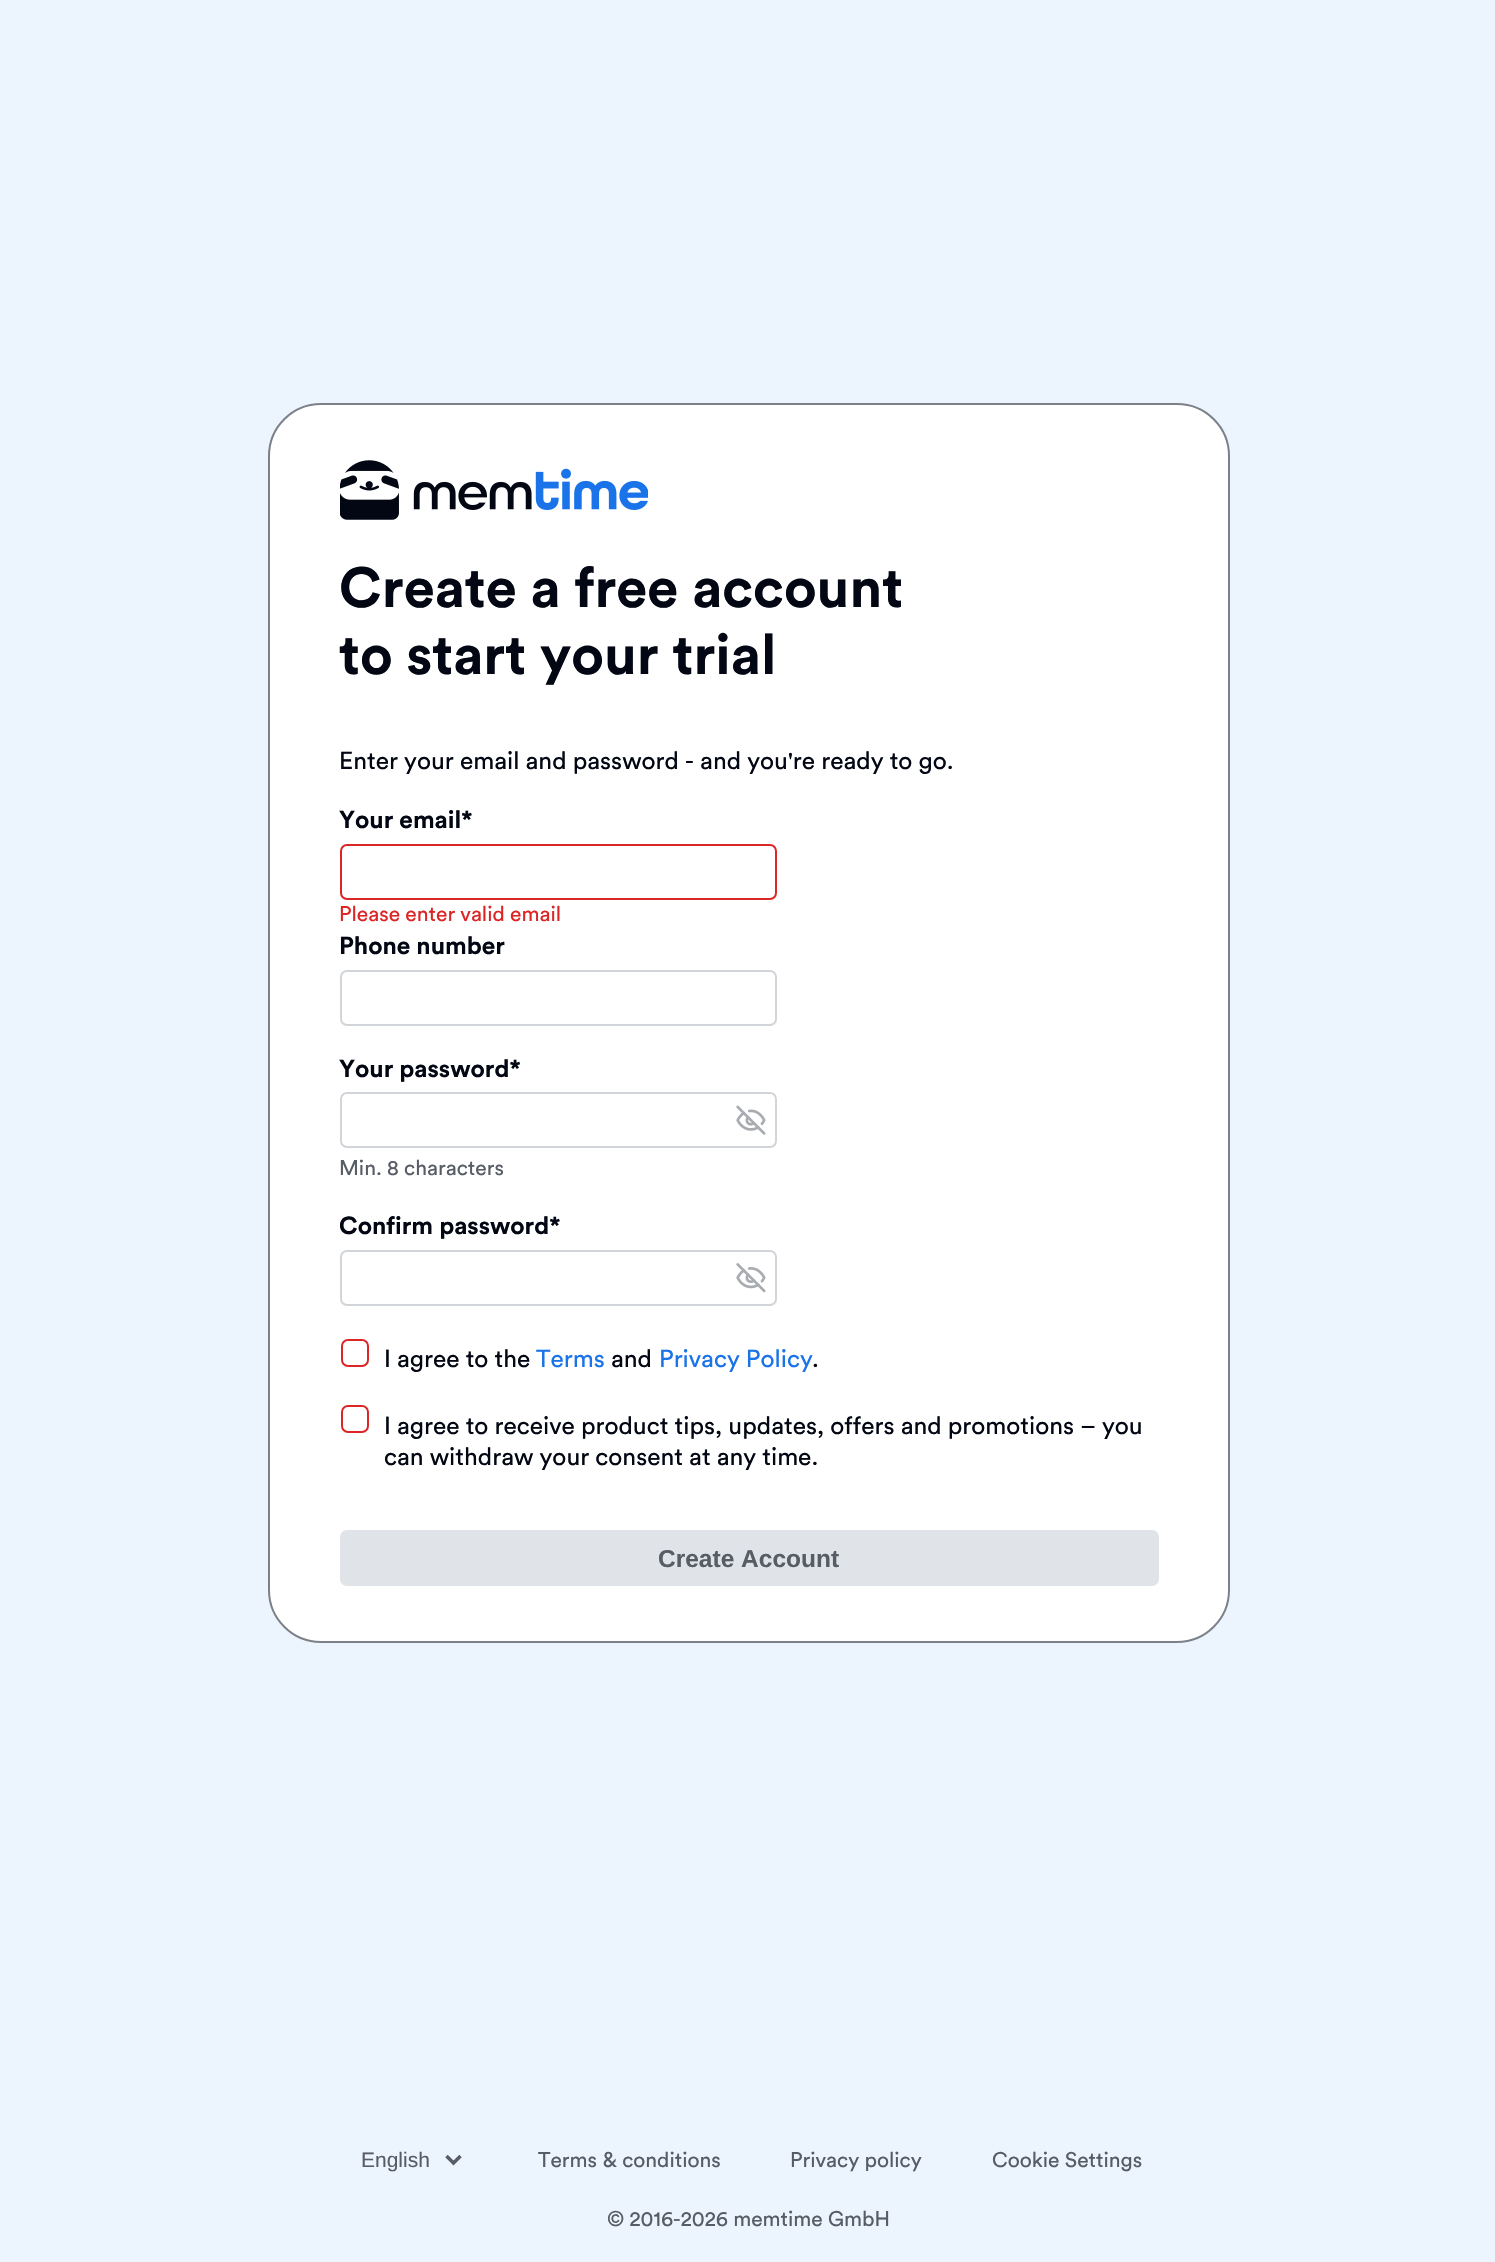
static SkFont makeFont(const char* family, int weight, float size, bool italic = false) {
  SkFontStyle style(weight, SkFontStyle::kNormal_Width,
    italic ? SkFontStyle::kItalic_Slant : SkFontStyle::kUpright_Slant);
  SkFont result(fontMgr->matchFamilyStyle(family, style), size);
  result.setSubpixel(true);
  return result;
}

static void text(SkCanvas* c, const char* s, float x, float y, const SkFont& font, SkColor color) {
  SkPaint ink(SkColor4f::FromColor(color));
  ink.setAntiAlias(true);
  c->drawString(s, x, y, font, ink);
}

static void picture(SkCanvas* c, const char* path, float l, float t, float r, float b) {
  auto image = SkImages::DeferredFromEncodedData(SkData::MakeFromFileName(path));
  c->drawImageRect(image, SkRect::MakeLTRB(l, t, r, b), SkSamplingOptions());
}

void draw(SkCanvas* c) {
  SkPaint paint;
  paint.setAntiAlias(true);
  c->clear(0xffecf4fd);
  paint.setColor(0xffffffff);
  c->drawRoundRect(SkRect::MakeLTRB(269, 404, 1229, 1642), 52, 52, paint);
  paint.setStyle(SkPaint::kStroke_Style);
  paint.setStrokeWidth(2);
  paint.setColor(0xff7c8088);
  c->drawRoundRect(SkRect::MakeLTRB(269, 404, 1229, 1642), 52, 52, paint);
  picture(c, "img_01.png", 340, 460, 648, 520);
  SkFont face1 = makeFont("Circular", 700, 56);
  text(c, "Create a free account", 339, 607, face1, 0xff020713);
  text(c, "to start your trial", 339, 674, face1, 0xff020713);
  SkFont face2 = makeFont("Circular", 400, 24.5f);
  text(c, "Enter your email and password - and you're ready to go.", 339, 769, face2, 0xff020713);
  SkFont face3 = makeFont("Circular", 700, 24.5f);
  text(c, "Your email*", 339, 828, face3, 0xff020713);
  paint.setColor(0xffdc2626);
  c->drawRoundRect(SkRect::MakeLTRB(341, 845, 776, 899), 6, 6, paint);
  SkFont face4 = makeFont("Circular", 400, 21);
  text(c, "Please enter valid email", 339, 921, face4, 0xffdc2626);
  text(c, "Phone number", 339, 954, face3, 0xff020713);
  paint.setColor(0xffd1d5d9);
  c->drawRoundRect(SkRect::MakeLTRB(341, 971, 776, 1025), 6, 6, paint);
  text(c, "Your password*", 339, 1077, face3, 0xff020713);
  c->drawRoundRect(SkRect::MakeLTRB(341, 1093, 776, 1147), 6, 6, paint);
  picture(c, "img_02.png", 736, 1105, 766, 1135);
  text(c, "Min. 8 characters", 339, 1175, face4, 0xff575c65);
  text(c, "Confirm password*", 339, 1234, face3, 0xff020713);
  c->drawRoundRect(SkRect::MakeLTRB(341, 1251, 776, 1305), 6, 6, paint);
  picture(c, "img_03.png", 736, 1263, 766, 1293);
  paint.setColor(0xffdc2626);
  c->drawRoundRect(SkRect::MakeLTRB(342, 1340, 368, 1366), 6, 6, paint);
  text(c, "I agree to the", 384, 1367, face2, 0xff020713);
  text(c, "Terms", 536, 1367, face2, 0xff1a73e8);
  text(c, "and", 611, 1367, face2, 0xff020713);
  text(c, "Privacy Policy", 659, 1367, face2, 0xff1a73e8);
  text(c, ".", 812, 1367, face2, 0xff020713);
  c->drawRoundRect(SkRect::MakeLTRB(342, 1406, 368, 1432), 6, 6, paint);
  text(c, "I agree to receive product tips, updates, offers and promotions – you", 384, 1434, face2, 0xff020713);
  text(c, "can withdraw your consent at any time.", 384, 1465, face2, 0xff020713);
  paint.setStyle(SkPaint::kFill_Style);
  paint.setColor(0xffe0e3e7);
  c->drawRoundRect(SkRect::MakeLTRB(342, 1532, 1157, 1584), 5, 5, paint);
  paint.setStyle(SkPaint::kStroke_Style);
  paint.setStrokeWidth(4);
  c->drawRoundRect(SkRect::MakeLTRB(342, 1532, 1157, 1584), 5, 5, paint);
  SkFont face5 = makeFont("Liberation Sans", 700, 24.5f);
  text(c, "Create Account", 658, 1567, face5, 0xff575c65);
  paint.setStrokeWidth(3.5f);
  paint.setColor(0xff575c65);
  c->drawPath(SkPathBuilder().moveTo(446.5f, 2156).lineTo(453.5f, 2163).lineTo(460.5f, 2156).detach(), paint);
  SkFont face6 = makeFont("Liberation Sans", 400, 21);
  text(c, "English", 361, 2167, face6, 0xff575c65);
  text(c, "Terms & conditions", 538, 2167, face4, 0xff575c65);
  text(c, "Privacy policy", 790, 2167, face4, 0xff575c65);
  text(c, "Cookie Settings", 992, 2167, face4, 0xff575c65);
  text(c, "© 2016-2026 memtime GmbH", 607, 2226, face4, 0xff575c65);
}
